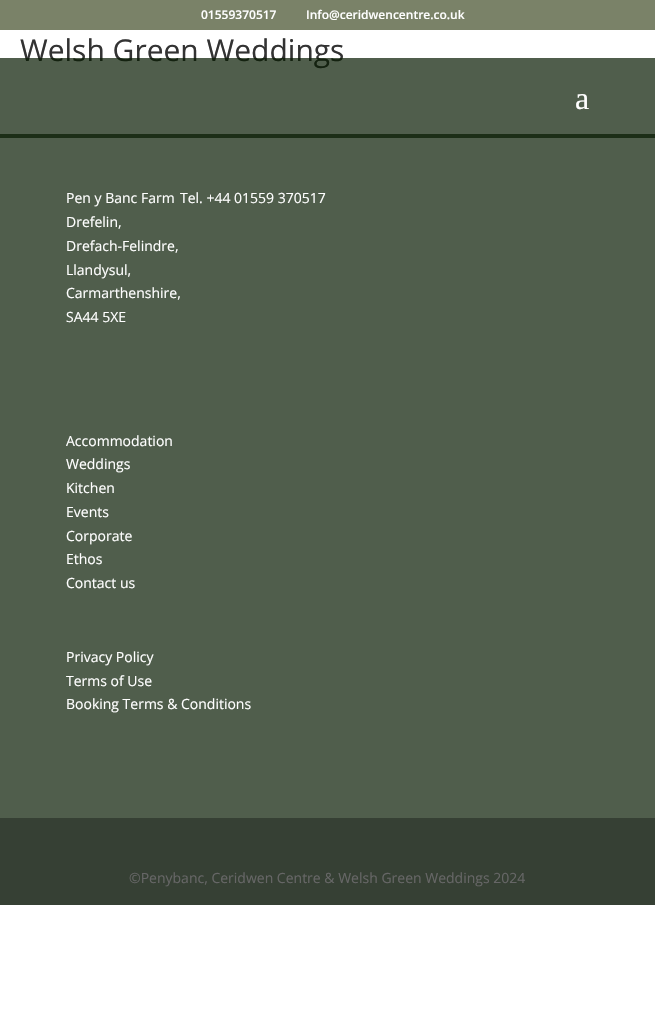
static SkFont makeFont(const char* family, int weight, float size, bool italic = false) {
  SkFontStyle style(weight, SkFontStyle::kNormal_Width,
    italic ? SkFontStyle::kItalic_Slant : SkFontStyle::kUpright_Slant);
  SkFont result(fontMgr->matchFamilyStyle(family, style), size);
  result.setSubpixel(true);
  return result;
}

static void text(SkCanvas* c, const char* s, float x, float y, const SkFont& font, SkColor color) {
  SkPaint ink(SkColor4f::FromColor(color));
  ink.setAntiAlias(true);
  c->drawString(s, x, y, font, ink);
}

static void box(SkCanvas* c, float l, float t, float r, float b, SkColor color) {
  SkPaint ink(SkColor4f::FromColor(color));
  ink.setAntiAlias(true);
  c->drawRect(SkRect::MakeLTRB(l, t, r, b), ink);
}

void draw(SkCanvas* c) {
  SkPaint paint;
  paint.setAntiAlias(true);
  c->clear(0xffffffff);
  box(c, 0, 0, 655, 30, 0xff7a8268);
  SkFont face1 = makeFont("Open Sans", 600, 12);
  text(c, "01559370517", 201, 19, face1, 0xffffffff);
  text(c, "Info@ceridwencentre.co.uk", 306, 19, face1, 0xffffffff);
  SkFont face2 = makeFont("Open Sans", 400, 30);
  text(c, "Welsh Green Weddings", 20, 61, face2, 0xff333333);
  box(c, 0, 134, 655, 818, 0xff505e4c);
  SkFont face3 = makeFont("Open Sans", 400, 14);
  text(c, "Pen y Banc Farm", 66, 203, face3, 0xffffffff);
  text(c, "Drefelin,", 66, 227, face3, 0xffffffff);
  text(c, "Drefach-Felindre,", 66, 251, face3, 0xffffffff);
  text(c, "Llandysul,", 66, 275, face3, 0xffffffff);
  text(c, "Carmarthenshire,", 66, 298, face3, 0xffffffff);
  text(c, "SA44 5XE", 66, 322, face3, 0xffffffff);
  text(c, "Tel. +44 01559 370517", 180, 203, face3, 0xffffffff);
  text(c, "Accommodation", 66, 446, face3, 0xffffffff);
  text(c, "Weddings", 66, 469, face3, 0xffffffff);
  text(c, "Kitchen", 66, 493, face3, 0xffffffff);
  text(c, "Events", 66, 517, face3, 0xffffffff);
  text(c, "Corporate", 66, 541, face3, 0xffffffff);
  text(c, "Ethos", 66, 564, face3, 0xffffffff);
  text(c, "Contact us", 66, 588, face3, 0xffffffff);
  text(c, "Privacy Policy", 66, 662, face3, 0xffffffff);
  text(c, "Terms of Use", 66, 686, face3, 0xffffffff);
  text(c, "Booking Terms & Conditions", 66, 709, face3, 0xffffffff);
  box(c, 0, 818, 655, 905, 0xff364034);
  text(c, "©Penybanc, Ceridwen Centre & Welsh Green Weddings 2024", 129, 883, face3, 0xff666666);
  box(c, 0, 58, 655, 138, 0xb3051900);
  SkFont face4 = makeFont("Liberation Serif", 400, 32);
  text(c, "a", 575, 109, face4, 0xffffffff);
}
